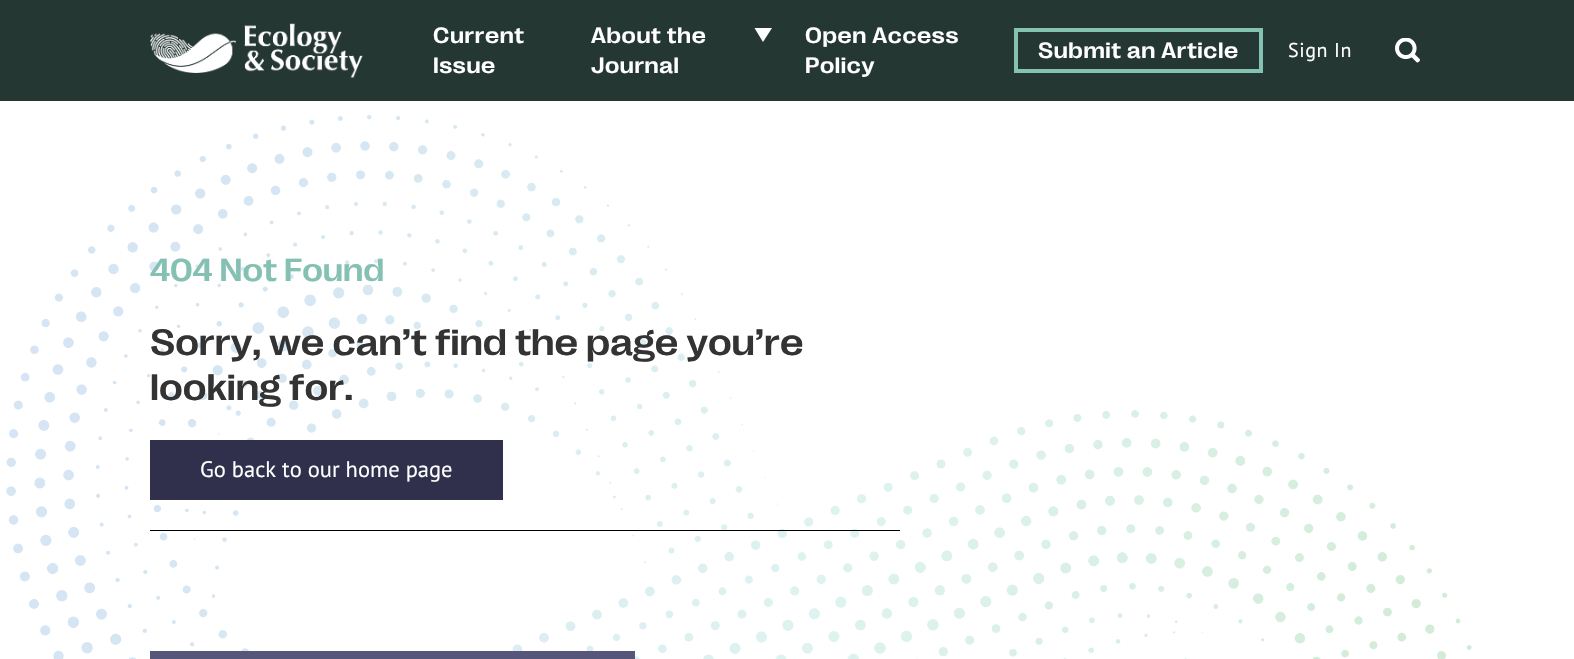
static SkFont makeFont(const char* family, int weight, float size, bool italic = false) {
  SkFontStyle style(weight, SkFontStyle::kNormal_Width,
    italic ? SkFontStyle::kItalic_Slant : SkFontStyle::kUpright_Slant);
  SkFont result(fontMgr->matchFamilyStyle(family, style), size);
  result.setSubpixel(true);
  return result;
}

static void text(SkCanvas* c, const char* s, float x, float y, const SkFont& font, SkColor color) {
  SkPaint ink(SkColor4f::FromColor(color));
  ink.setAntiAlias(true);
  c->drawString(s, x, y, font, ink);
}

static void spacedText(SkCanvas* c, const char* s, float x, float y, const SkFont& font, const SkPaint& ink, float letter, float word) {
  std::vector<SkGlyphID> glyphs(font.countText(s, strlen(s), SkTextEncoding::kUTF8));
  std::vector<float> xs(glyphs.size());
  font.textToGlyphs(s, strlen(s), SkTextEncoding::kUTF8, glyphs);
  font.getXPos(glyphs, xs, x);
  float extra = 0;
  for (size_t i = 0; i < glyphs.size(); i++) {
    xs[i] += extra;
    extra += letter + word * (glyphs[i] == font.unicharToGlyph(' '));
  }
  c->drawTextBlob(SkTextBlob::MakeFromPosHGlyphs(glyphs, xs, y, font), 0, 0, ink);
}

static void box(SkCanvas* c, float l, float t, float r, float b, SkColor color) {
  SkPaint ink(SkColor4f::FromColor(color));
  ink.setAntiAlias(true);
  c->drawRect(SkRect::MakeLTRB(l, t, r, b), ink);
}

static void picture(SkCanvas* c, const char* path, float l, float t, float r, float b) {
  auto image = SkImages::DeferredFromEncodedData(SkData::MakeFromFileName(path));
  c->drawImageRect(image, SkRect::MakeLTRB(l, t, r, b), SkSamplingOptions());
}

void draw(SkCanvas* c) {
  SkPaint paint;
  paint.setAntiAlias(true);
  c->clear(0xffffffff);
  box(c, 0, 0, 1574, 101, 0xff253733);
  picture(c, "img_01.png", 150, 23, 363, 78);
  SkFont face1 = makeFont("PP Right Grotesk", 500, 22.5f);
  paint.setColor(0xffffffff);
  spacedText(c, "Current", 433, 43, face1, paint, 0.6f, 0);
  spacedText(c, "Issue", 433, 73, face1, paint, 0.6f, 0);
  spacedText(c, "About the", 591, 43, face1, paint, 0.6f, 0);
  c->drawPath(SkPathBuilder().moveTo(754.5f, 28).lineTo(772, 28).lineTo(763, 42).close().detach(), paint);
  spacedText(c, "Journal", 591, 73, face1, paint, 0.6f, 0);
  spacedText(c, "Open Access", 805, 43, face1, paint, 0.6f, 0);
  spacedText(c, "Policy", 805, 73, face1, paint, 0.6f, 0);
  paint.setStyle(SkPaint::kStroke_Style);
  paint.setStrokeWidth(4);
  paint.setColor(0xff84c2b2);
  c->drawRect(SkRect::MakeLTRB(1016, 30, 1261, 71), paint);
  paint.setStyle(SkPaint::kFill_Style);
  paint.setColor(0xffffffff);
  spacedText(c, "Submit an Article", 1038, 58, face1, paint, 0.6f, 0);
  SkFont face2 = makeFont("PT Sans", 400, 20);
  spacedText(c, "Sign In", 1288, 57, face2, paint, 0.6f, 0);
  picture(c, "img_02.png", 1395, 38, 1420, 63);
  picture(c, "img_03.png", 6, 115, 1472, 659);
  box(c, 150, 530, 900, 531, 0xff000000);
  SkFont face3 = makeFont("PP Right Grotesk", 500, 32.5f);
  text(c, "404 Not Found", 150, 281, face3, 0xff84c1b2);
  SkFont face4 = makeFont("PP Right Grotesk", 500, 37.5f);
  text(c, "Sorry, we can’t find the page you’re", 150, 355, face4, 0xff333333);
  text(c, "looking for.", 150, 400, face4, 0xff333333);
  box(c, 150, 440, 503, 500, 0xff30304c);
  SkFont face5 = makeFont("PT Sans", 400, 22.5f);
  text(c, "Go back to our home page", 200, 477, face5, 0xffffffff);
  box(c, 150, 651, 635, 659, 0xff55567a);
}
